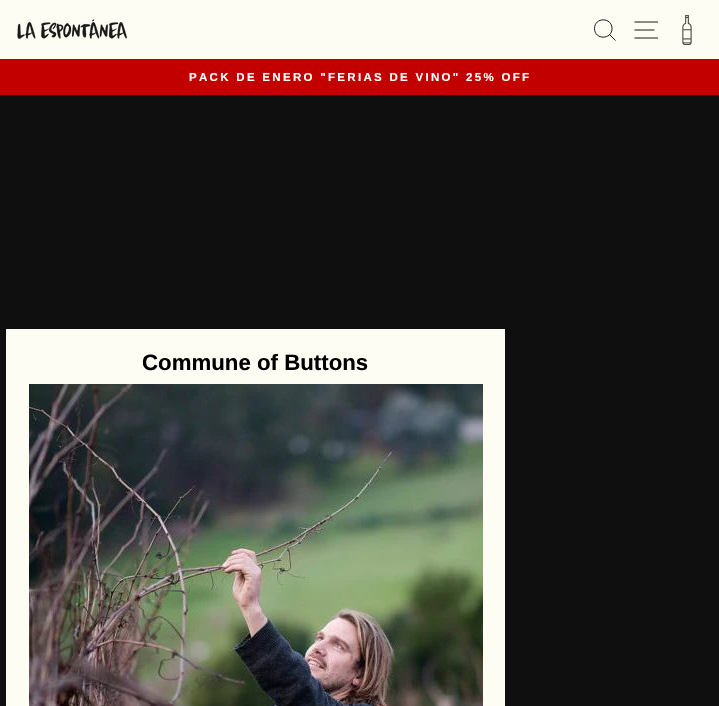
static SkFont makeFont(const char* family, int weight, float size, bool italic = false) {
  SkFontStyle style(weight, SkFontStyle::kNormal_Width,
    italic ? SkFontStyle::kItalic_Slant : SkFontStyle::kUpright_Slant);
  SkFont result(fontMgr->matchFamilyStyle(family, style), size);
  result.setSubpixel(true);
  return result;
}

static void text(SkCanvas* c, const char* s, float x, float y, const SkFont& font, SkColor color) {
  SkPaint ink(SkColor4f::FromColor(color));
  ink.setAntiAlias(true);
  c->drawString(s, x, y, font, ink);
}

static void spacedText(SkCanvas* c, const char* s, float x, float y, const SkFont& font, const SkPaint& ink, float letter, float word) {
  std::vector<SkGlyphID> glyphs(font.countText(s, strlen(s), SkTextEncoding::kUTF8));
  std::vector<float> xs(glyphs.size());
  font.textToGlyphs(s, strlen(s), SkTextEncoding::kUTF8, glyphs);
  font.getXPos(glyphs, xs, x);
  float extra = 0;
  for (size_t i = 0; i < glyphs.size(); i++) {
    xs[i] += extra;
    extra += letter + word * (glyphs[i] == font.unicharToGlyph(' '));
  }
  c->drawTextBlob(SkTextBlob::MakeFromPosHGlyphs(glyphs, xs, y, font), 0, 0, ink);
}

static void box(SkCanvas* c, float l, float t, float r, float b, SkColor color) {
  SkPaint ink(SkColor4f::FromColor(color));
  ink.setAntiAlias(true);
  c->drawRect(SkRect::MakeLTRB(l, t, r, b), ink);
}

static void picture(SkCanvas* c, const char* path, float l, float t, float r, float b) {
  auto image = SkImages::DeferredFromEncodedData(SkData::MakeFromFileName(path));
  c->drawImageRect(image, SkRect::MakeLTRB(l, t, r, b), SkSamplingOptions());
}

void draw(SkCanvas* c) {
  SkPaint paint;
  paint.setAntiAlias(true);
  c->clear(0xfffefdf4);
  picture(c, "img_01.png", 17, 19, 127, 39);
  paint.setStyle(SkPaint::kStroke_Style);
  paint.setStrokeWidth(0.9f);
  paint.setColor(0xff000000);
  c->drawPath(SkPathBuilder().moveTo(612, 28.5f).cubicTo(612, 40, 594.5f, 40, 594.5f, 28.5f).cubicTo(594.5f, 17, 612, 17, 612, 28.5f).close().moveTo(615.5f, 40.5f).lineTo(609.5f, 34.5f).detach(), paint);
  c->drawPath(SkPathBuilder().moveTo(634.5f, 22).lineTo(658, 22).moveTo(634.5f, 30).lineTo(654.5f, 30).moveTo(634.5f, 38).lineTo(658, 38).detach(), paint);
  picture(c, "img_02.png", 682, 15, 692, 45);
  box(c, 0, 59, 719, 95, 0xffc20000);
  SkFont face1 = makeFont("Arimo", 700, 11.5f);
  paint.setStyle(SkPaint::kFill_Style);
  paint.setColor(0xffffffff);
  spacedText(c, "PACK DE ENERO \"FERIAS DE VINO\" 25% OFF", 189, 81, face1, paint, 2.3f, 0);
  box(c, 0, 95, 719, 706, 0xff0f0f0f);
  box(c, 6, 329, 505, 706, 0xfffefdf4);
  SkFont face2 = makeFont("Arimo", 700, 22.25f);
  text(c, "Commune of Buttons", 142, 370, face2, 0xff000000);
  picture(c, "img_03.png", 29, 384, 483, 706);
}
